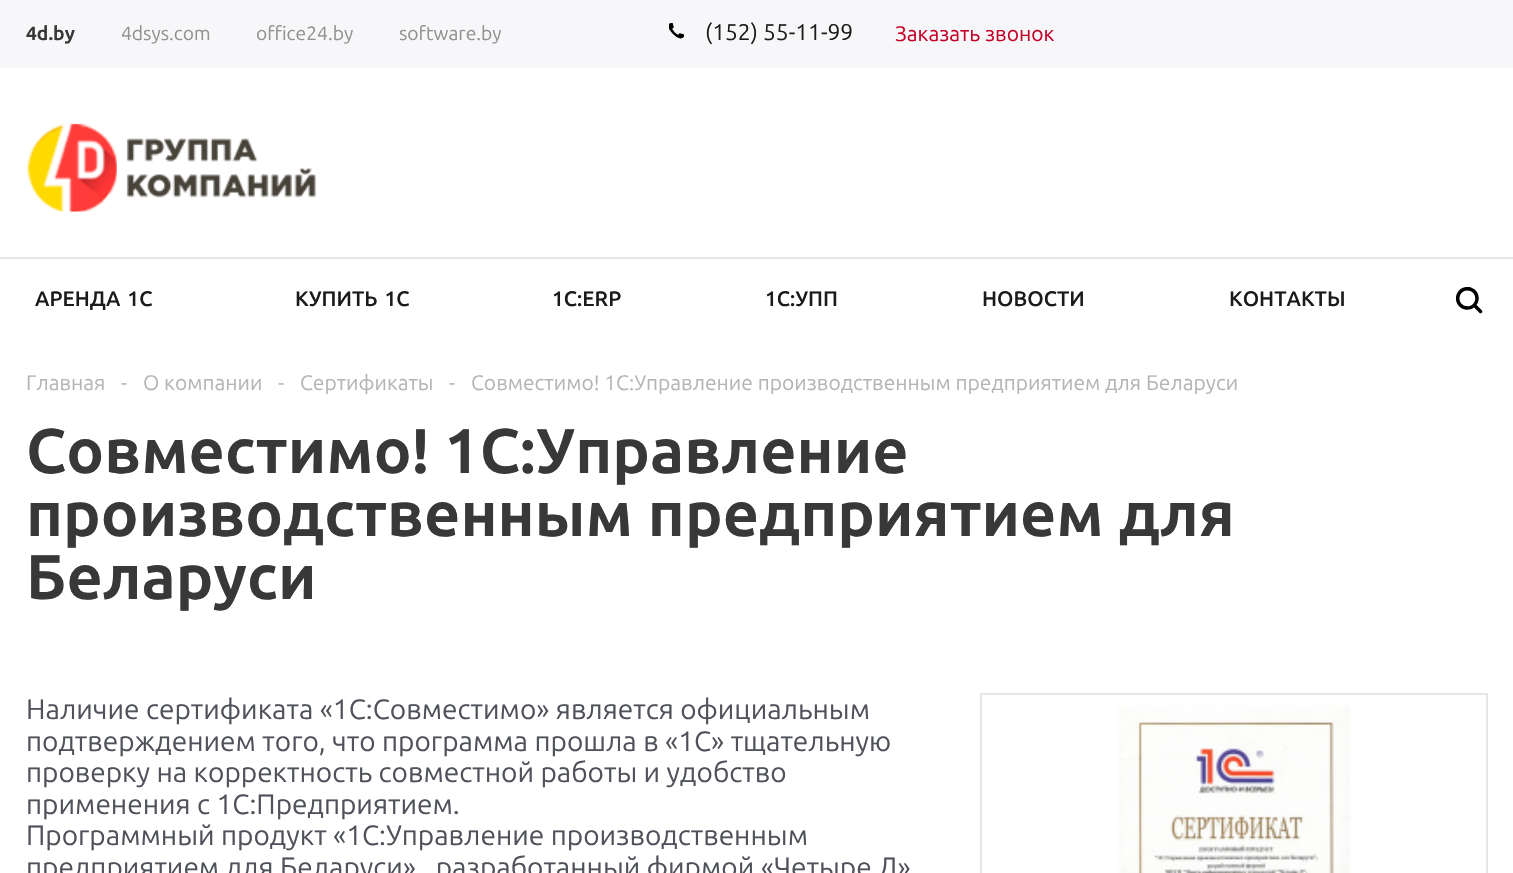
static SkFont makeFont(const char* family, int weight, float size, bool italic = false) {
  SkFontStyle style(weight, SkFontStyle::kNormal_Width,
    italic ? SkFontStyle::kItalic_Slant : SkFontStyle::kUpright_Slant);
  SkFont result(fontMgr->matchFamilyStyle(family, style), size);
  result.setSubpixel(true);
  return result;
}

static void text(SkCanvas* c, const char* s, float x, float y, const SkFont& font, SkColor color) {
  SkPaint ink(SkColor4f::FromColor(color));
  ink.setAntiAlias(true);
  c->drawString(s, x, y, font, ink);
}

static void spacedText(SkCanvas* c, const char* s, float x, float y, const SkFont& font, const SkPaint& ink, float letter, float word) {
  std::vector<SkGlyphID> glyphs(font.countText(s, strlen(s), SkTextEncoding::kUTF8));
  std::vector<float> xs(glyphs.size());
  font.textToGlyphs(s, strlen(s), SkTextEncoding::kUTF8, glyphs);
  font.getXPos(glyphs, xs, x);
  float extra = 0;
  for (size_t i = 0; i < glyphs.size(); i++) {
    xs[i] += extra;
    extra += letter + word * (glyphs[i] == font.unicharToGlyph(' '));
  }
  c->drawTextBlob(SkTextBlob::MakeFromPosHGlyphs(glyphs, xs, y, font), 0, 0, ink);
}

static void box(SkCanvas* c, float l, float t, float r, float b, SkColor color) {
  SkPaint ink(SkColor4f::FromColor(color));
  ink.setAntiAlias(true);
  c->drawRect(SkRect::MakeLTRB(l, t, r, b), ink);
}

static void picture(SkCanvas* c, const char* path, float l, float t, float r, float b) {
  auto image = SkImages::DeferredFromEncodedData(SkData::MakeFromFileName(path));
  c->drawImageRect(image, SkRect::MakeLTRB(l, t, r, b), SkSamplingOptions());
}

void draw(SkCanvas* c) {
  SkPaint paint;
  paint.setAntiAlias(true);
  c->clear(0xffffffff);
  box(c, 0, 0, 1513, 68, 0xfff7f7f9);
  SkFont face1 = makeFont("Ubuntu", 700, 19.25f);
  text(c, "4d.by", 26, 40, face1, 0xff383838);
  SkFont face2 = makeFont("Ubuntu", 400, 19.25f);
  text(c, "4dsys.com", 121, 40, face2, 0xff919191);
  text(c, "office24.by", 256, 40, face2, 0xff919191);
  text(c, "software.by", 399, 40, face2, 0xff919191);
  picture(c, "img_01.png", 669, 23, 684, 39);
  SkFont face3 = makeFont("Ubuntu", 400, 22.75f);
  text(c, "(152) 55-11-99", 705, 40, face3, 0xff1d1a1a);
  SkFont face4 = makeFont("Ubuntu", 400, 21);
  text(c, "Заказать звонок", 895, 41, face4, 0xffc50026);
  box(c, 0, 257, 1513, 259, 0xffe5e5e5);
  picture(c, "img_02.png", 27, 123, 316, 212);
  SkFont face5 = makeFont("Ubuntu", 600, 21);
  paint.setColor(0xff1d1a1a);
  spacedText(c, "АРЕНДА 1С", 35, 306, face5, paint, 0, 2);
  spacedText(c, "КУПИТЬ 1С", 295, 306, face5, paint, 0, 2);
  text(c, "1С:ERP", 552, 306, face5, 0xff1d1a1a);
  text(c, "1С:УПП", 765, 306, face5, 0xff1d1a1a);
  text(c, "НОВОСТИ", 982, 306, face5, 0xff1d1a1a);
  text(c, "КОНТАКТЫ", 1229, 306, face5, 0xff1d1a1a);
  picture(c, "img_03.png", 1456, 287, 1483, 314);
  text(c, "Главная", 26, 390, face4, 0xffb6b5b5);
  text(c, "-", 121, 390, face4, 0xffb6b5b5);
  text(c, "О компании", 143, 390, face4, 0xffb6b5b5);
  text(c, "-", 278, 390, face4, 0xffb6b5b5);
  text(c, "Сертификаты", 300, 390, face4, 0xffb6b5b5);
  text(c, "-", 449, 390, face4, 0xffb6b5b5);
  text(c, "Совместимо! 1С:Управление производственным предприятием для Беларуси", 471, 390, face4, 0xffb6b5b5);
  SkFont face6 = makeFont("Ubuntu", 700, 63);
  text(c, "Совместимо! 1С:Управление", 26, 473, face6, 0xff383838);
  text(c, "производственным предприятием для", 26, 536, face6, 0xff383838);
  text(c, "Беларуси", 26, 599, face6, 0xff383838);
  SkFont face7 = makeFont("Ubuntu", 400, 28);
  text(c, "Наличие сертификата «1С:Совместимо» является официальным", 26, 719, face7, 0xff50525b);
  text(c, "подтверждением того, что программа прошла в «1С» тщательную", 26, 751, face7, 0xff50525b);
  text(c, "проверку на корректность совместной работы и удобство", 26, 782, face7, 0xff50525b);
  text(c, "применения с 1С:Предприятием.", 26, 814, face7, 0xff50525b);
  text(c, "Программный продукт «1С:Управление производственным", 26, 845, face7, 0xff50525b);
  text(c, "предприятием для Беларуси»,  разработанный фирмой «Четыре Д»", 26, 877, face7, 0xff50525b);
  paint.setStyle(SkPaint::kStroke_Style);
  paint.setStrokeWidth(2);
  paint.setColor(0xffe5e5e5);
  c->drawRect(SkRect::MakeLTRB(981, 694, 1487, 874), paint);
  picture(c, "img_04.png", 1117, 705, 1351, 873);
}
